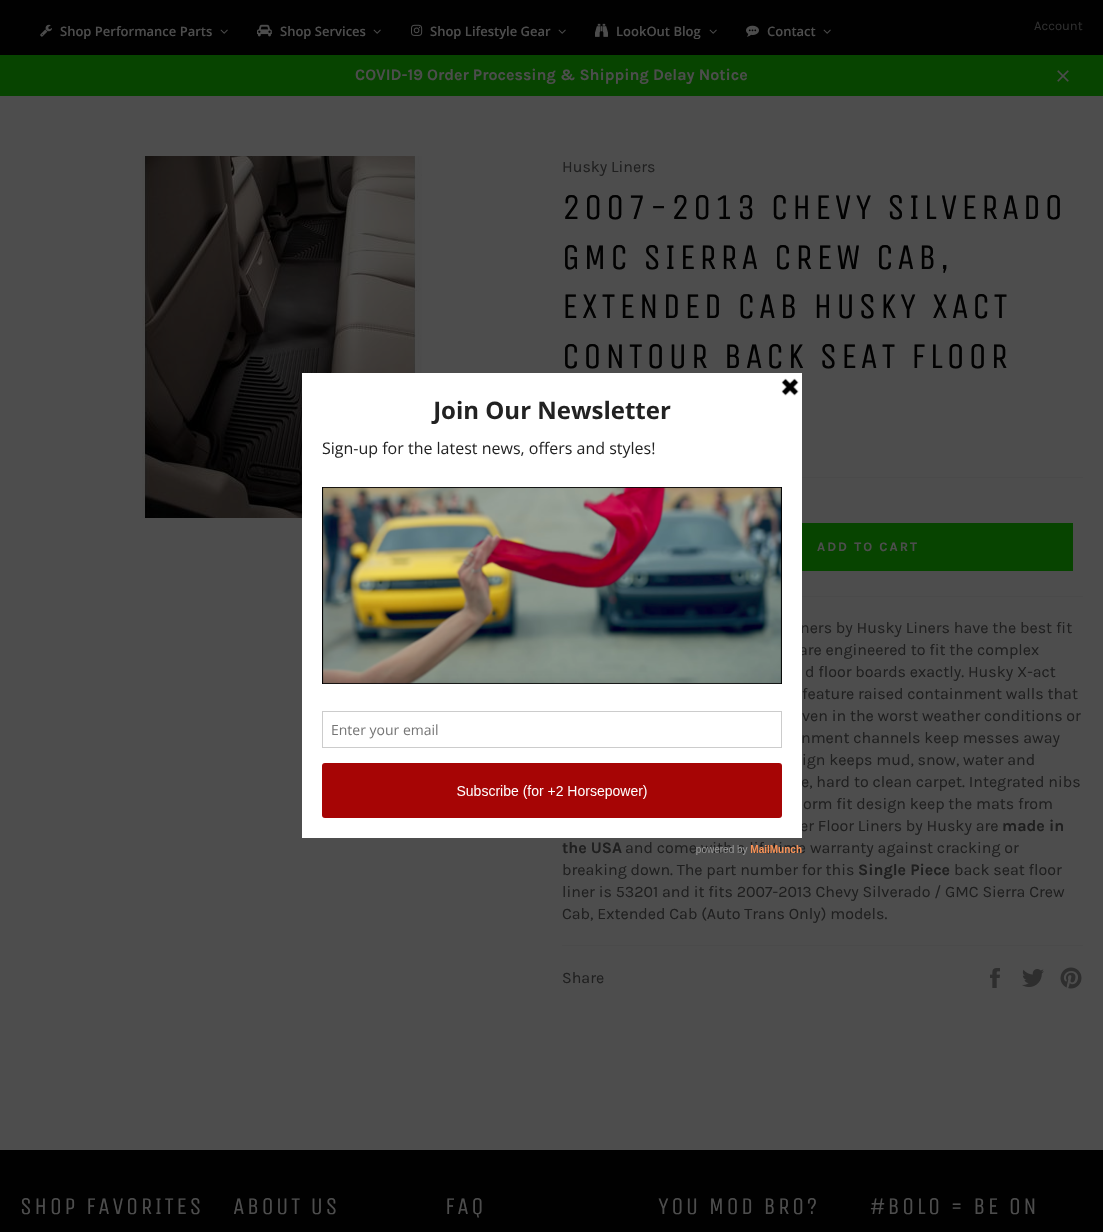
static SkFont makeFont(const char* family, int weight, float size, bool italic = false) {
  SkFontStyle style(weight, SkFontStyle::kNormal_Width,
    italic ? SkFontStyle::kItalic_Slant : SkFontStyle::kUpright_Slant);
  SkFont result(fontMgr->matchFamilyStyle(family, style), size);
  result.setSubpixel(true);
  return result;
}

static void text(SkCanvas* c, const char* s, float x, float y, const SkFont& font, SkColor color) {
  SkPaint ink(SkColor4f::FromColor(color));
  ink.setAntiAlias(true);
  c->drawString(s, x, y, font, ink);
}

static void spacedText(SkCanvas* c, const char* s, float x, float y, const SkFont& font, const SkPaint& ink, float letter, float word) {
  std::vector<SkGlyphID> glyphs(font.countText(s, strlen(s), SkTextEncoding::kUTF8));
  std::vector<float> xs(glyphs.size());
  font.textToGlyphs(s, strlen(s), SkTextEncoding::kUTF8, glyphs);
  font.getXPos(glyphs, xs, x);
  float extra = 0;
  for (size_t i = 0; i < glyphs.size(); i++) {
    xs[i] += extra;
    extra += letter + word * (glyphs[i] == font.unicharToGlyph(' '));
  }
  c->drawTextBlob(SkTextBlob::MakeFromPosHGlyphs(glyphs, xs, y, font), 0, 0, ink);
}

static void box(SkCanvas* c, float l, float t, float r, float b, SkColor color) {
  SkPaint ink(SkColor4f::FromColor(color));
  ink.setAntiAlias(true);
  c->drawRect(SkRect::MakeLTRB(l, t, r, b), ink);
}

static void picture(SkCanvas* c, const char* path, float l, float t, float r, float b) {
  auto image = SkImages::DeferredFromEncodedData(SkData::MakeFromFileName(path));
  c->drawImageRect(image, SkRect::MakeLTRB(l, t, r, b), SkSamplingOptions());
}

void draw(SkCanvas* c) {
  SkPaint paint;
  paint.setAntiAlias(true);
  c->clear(0xff074400);
  box(c, 0, 0, 1103, 55, 0xff010101);
  picture(c, "img_01.png", 40, 24, 52, 37);
  SkFont face1 = makeFont("Open Sans", 600, 13);
  text(c, "Shop Performance Parts", 60, 36, face1, 0xff4d4d4d);
  picture(c, "img_02.png", 220, 29, 228, 34);
  picture(c, "img_03.png", 257, 24, 272, 37);
  text(c, "Shop Services", 280, 36, face1, 0xff4d4d4d);
  picture(c, "img_02.png", 373, 29, 381, 34);
  picture(c, "img_04.png", 411, 24, 423, 36);
  text(c, "Shop Lifestyle Gear", 430, 36, face1, 0xff4d4d4d);
  picture(c, "img_02.png", 558, 29, 566, 34);
  picture(c, "img_05.png", 595, 23, 608, 37);
  text(c, "LookOut Blog", 616, 36, face1, 0xff4d4d4d);
  picture(c, "img_02.png", 709, 29, 717, 34);
  picture(c, "img_06.png", 746, 25, 759, 37);
  text(c, "Contact", 767, 36, face1, 0xff4d4d4d);
  picture(c, "img_02.png", 823, 29, 831, 34);
  SkFont face2 = makeFont("Karla", 400, 13);
  text(c, "Account", 1034, 30, face2, 0xff2e2e2e);
  SkFont face3 = makeFont("Karla", 700, 16);
  text(c, "COVID-19 Order Processing & Shipping Delay Notice", 355, 80, face3, 0xff4d4d4d);
  picture(c, "img_07.png", 1057, 70, 1069, 82);
  box(c, 0, 96, 1103, 1150, 0xff4d4d4d);
  picture(c, "img_08.png", 142, 156, 422, 518);
  SkFont face4 = makeFont("Karla", 400, 16);
  text(c, "Husky Liners", 562, 172, face4, 0xff1f1f1f);
  SkFont face5 = makeFont("Unica One", 400, 36);
  paint.setColor(0xff010101);
  spacedText(c, "2007-2013 CHEVY SILVERADO", 562, 219, face5, paint, 3.6f, 0);
  spacedText(c, "GMC SIERRA CREW CAB,", 562, 269, face5, paint, 3.6f, 0);
  spacedText(c, "EXTENDED CAB HUSKY XACT", 562, 318, face5, paint, 3.6f, 0);
  spacedText(c, "CONTOUR BACK SEAT FLOOR", 562, 368, face5, paint, 3.6f, 0);
  box(c, 802, 477, 1083, 478, 0xff4a4a4a);
  box(c, 802, 523, 1073, 571, 0xff074400);
  SkFont face6 = makeFont("Karla", 700, 13);
  paint.setColor(0xff4d4d4d);
  spacedText(c, "ADD TO CART", 817, 551, face6, paint, 2, 0);
  box(c, 802, 596, 1083, 597, 0xff4a4a4a);
  text(c, "ners by Husky Liners have the best fit", 800, 633, face4, 0xff1f1f1f);
  text(c, "are engineered to fit the complex", 799, 655, face4, 0xff1f1f1f);
  text(c, "d floor boards exactly. Husky X-act", 805, 677, face4, 0xff1f1f1f);
  text(c, "feature raised containment walls that", 802, 699, face4, 0xff1f1f1f);
  text(c, "ven in the worst weather conditions or", 802, 721, face4, 0xff1f1f1f);
  text(c, "nment channels keep messes away", 801, 743, face4, 0xff1f1f1f);
  text(c, "ign keeps mud, snow, water and", 802, 765, face4, 0xff1f1f1f);
  text(c, "e, hard to clean carpet. Integrated nibs", 801, 787, face4, 0xff1f1f1f);
  text(c, "orm fit design keep the mats from", 803, 809, face4, 0xff1f1f1f);
  text(c, "er Floor Liners by Husky are", 800, 831, face4, 0xff1f1f1f);
  text(c, "made in", 1002, 831, face3, 0xff1f1f1f);
  text(c, "the USA", 562, 853, face3, 0xff1f1f1f);
  text(c, "and come with a lifetime warranty against cracking or", 625, 853, face4, 0xff1f1f1f);
  text(c, "breaking down. The part number for this", 562, 875, face4, 0xff1f1f1f);
  text(c, "Single Piece", 858, 875, face3, 0xff1f1f1f);
  text(c, "back seat floor", 954, 875, face4, 0xff1f1f1f);
  text(c, "liner is 53201 and it fits 2007-2013 Chevy Silverado / GMC Sierra Crew", 562, 897, face4, 0xff1f1f1f);
  text(c, "Cab, Extended Cab (Auto Trans Only) models.", 562, 919, face4, 0xff1f1f1f);
  box(c, 562, 945, 1083, 946, 0xff4a4a4a);
  text(c, "Share", 562, 983, face4, 0xff1f1f1f);
  picture(c, "img_09.png", 990, 968, 1000, 988);
  picture(c, "img_10.png", 1022, 969, 1044, 987);
  picture(c, "img_11.png", 1060, 967, 1082, 989);
  box(c, 0, 1150, 1103, 1232, 0xff010101);
  SkFont face7 = makeFont("Unica One", 400, 24);
  spacedText(c, "SHOP FAVORITES", 20, 1214, face7, paint, 2.4f, 0);
  spacedText(c, "ABOUT US", 233, 1214, face7, paint, 2.4f, 0);
  spacedText(c, "FAQ", 445, 1214, face7, paint, 2.4f, 0);
  spacedText(c, "YOU MOD BRO?", 658, 1214, face7, paint, 2.4f, 0);
  spacedText(c, "#BOLO = BE ON", 870, 1214, face7, paint, 2.4f, 0);
  picture(c, "img_12.png", 302, 373, 802, 855);
}
